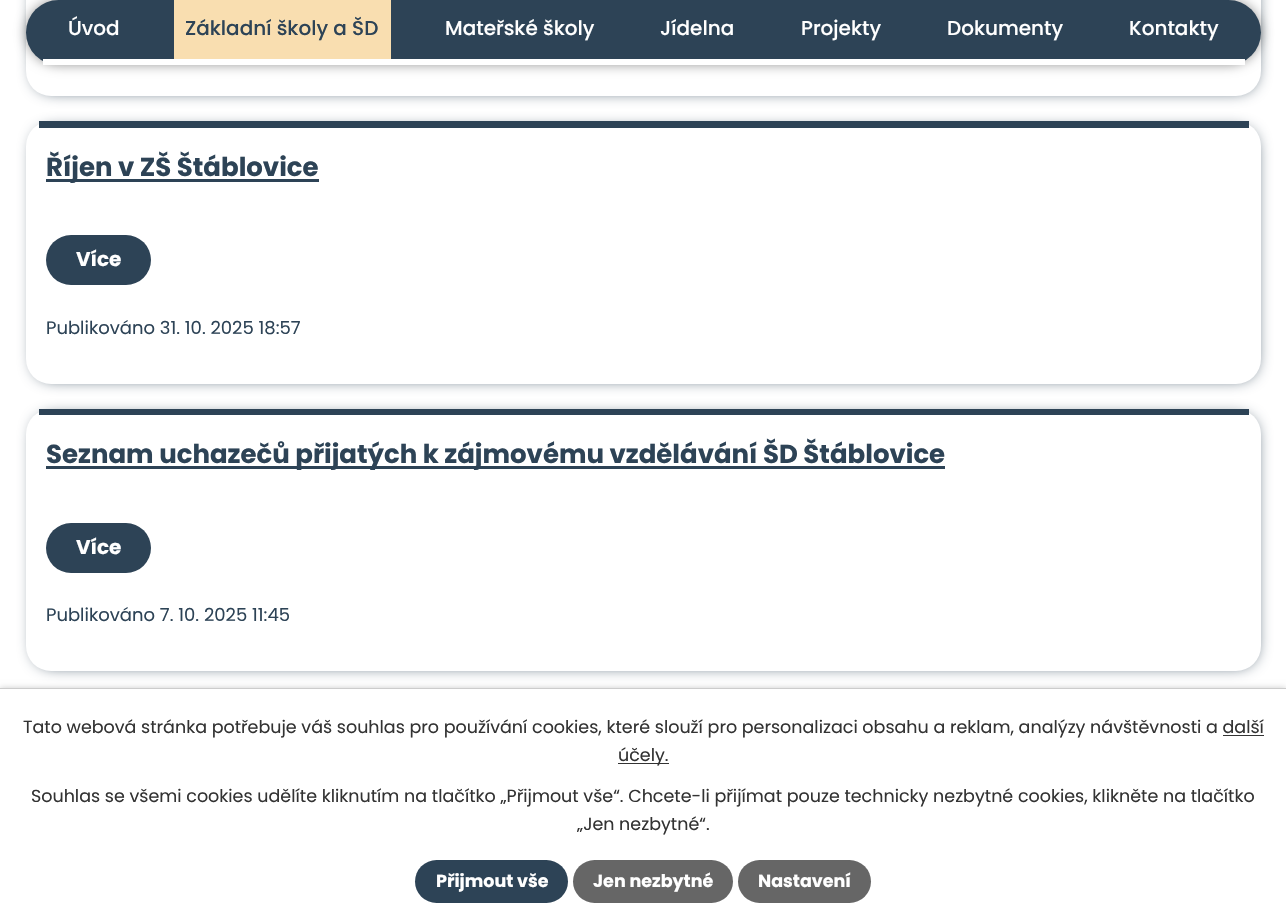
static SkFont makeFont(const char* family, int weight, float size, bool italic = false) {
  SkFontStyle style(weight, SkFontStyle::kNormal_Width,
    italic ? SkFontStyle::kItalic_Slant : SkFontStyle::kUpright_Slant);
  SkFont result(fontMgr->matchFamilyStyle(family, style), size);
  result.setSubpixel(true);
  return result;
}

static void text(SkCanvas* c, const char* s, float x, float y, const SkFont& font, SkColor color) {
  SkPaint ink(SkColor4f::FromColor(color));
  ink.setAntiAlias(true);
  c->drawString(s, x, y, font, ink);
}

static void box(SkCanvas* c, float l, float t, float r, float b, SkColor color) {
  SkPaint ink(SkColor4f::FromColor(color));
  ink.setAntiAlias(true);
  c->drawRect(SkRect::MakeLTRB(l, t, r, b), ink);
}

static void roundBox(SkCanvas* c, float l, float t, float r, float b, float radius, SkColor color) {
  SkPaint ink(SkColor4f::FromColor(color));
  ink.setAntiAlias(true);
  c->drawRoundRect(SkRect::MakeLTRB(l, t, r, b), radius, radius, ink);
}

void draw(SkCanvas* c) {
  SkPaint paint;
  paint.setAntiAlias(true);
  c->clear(0xffffffff);
  paint.setColor(0xff2d4356);
  paint.setMaskFilter(SkMaskFilter::MakeBlur(kNormal_SkBlurStyle, 7.5f));
  c->drawRoundRect(SkRect::MakeLTRB(34, -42, 1256, 91), 19, 19, paint);
  paint.setMaskFilter(nullptr);
  roundBox(c, 26, -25, 1261, 96, 25, 0xffffffff);
  paint.setColor(0x66000000);
  paint.setMaskFilter(SkMaskFilter::MakeBlur(kNormal_SkBlurStyle, 6));
  c->drawRoundRect(SkRect::MakeLTRB(26, 0, 1261, 65), 32.5f, 32.5f, paint);
  paint.setMaskFilter(nullptr);
  roundBox(c, 26, 0, 1261, 65, 32.5f, 0xff2d4356);
  box(c, 43, 59, 1245, 65, 0xffffffff);
  SkFont face1 = makeFont("Poppins", 500, 20);
  text(c, "Úvod", 68, 35, face1, 0xffffffff);
  box(c, 174, 0, 391, 59, 0xfff9deb0);
  text(c, "Základní školy a ŠD", 185, 35, face1, 0xff2d4356);
  text(c, "Mateřské školy", 445, 35, face1, 0xffffffff);
  text(c, "Jídelna", 660, 35, face1, 0xffffffff);
  text(c, "Projekty", 801, 35, face1, 0xffffffff);
  text(c, "Dokumenty", 947, 35, face1, 0xffffffff);
  text(c, "Kontakty", 1129, 35, face1, 0xffffffff);
  paint.setColor(0xff2d4356);
  paint.setMaskFilter(SkMaskFilter::MakeBlur(kNormal_SkBlurStyle, 7.5f));
  c->drawRoundRect(SkRect::MakeLTRB(34, 129, 1256, 379), 19, 19, paint);
  paint.setMaskFilter(nullptr);
  roundBox(c, 26, 121, 1261, 384, 25, 0xffffffff);
  box(c, 39, 121, 1249, 128, 0xff2d4356);
  box(c, 46, 179, 319, 182, 0xff2d4356);
  SkFont face2 = makeFont("Poppins", 700, 26);
  text(c, "Říjen v ZŠ Štáblovice", 46, 176, face2, 0xff2d4356);
  roundBox(c, 46, 235, 151, 285, 25, 0xff2d4356);
  SkFont face3 = makeFont("Poppins", 700, 20);
  text(c, "Více", 76, 266, face3, 0xffffffff);
  SkFont face4 = makeFont("Poppins", 400, 18);
  text(c, "Publikováno 31. 10. 2025 18:57", 46, 334, face4, 0xff2d4356);
  paint.setMaskFilter(SkMaskFilter::MakeBlur(kNormal_SkBlurStyle, 7.5f));
  c->drawRoundRect(SkRect::MakeLTRB(34, 416, 1256, 666), 19, 19, paint);
  paint.setMaskFilter(nullptr);
  roundBox(c, 26, 409, 1261, 671, 25, 0xffffffff);
  box(c, 39, 409, 1249, 415, 0xff2d4356);
  box(c, 46, 466, 945, 469, 0xff2d4356);
  text(c, "Seznam uchazečů přijatých k zájmovému vzdělávání ŠD Štáblovice", 46, 463, face2, 0xff2d4356);
  roundBox(c, 46, 523, 151, 573, 25, 0xff2d4356);
  text(c, "Více", 76, 554, face3, 0xffffffff);
  text(c, "Publikováno 7. 10. 2025 11:45", 46, 621, face4, 0xff2d4356);
  paint.setColor(0x33000000);
  paint.setMaskFilter(SkMaskFilter::MakeBlur(kNormal_SkBlurStyle, 3));
  c->drawRect(SkRect::MakeLTRB(0, 688, 1286, 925), paint);
  paint.setMaskFilter(nullptr);
  box(c, 0, 689, 1286, 924, 0xffffffff);
  box(c, 0, 688, 1286, 689, 0xffcccccc);
  SkFont face5 = makeFont("Poppins", 400, 17.5f);
  text(c, "Tato webová stránka potřebuje váš souhlas pro používání cookies, které slouží pro personalizaci obsahu a reklam, analýzy návštěvnosti a další", 23, 733, face5, 0xff333333);
  box(c, 618, 763, 669, 764, 0xff333333);
  text(c, "účely.", 618, 761, face5, 0xff333333);
  box(c, 1223, 735, 1264, 736, 0xff333333);
  text(c, "Souhlas se všemi cookies udělíte kliknutím na tlačítko „Přijmout vše“. Chcete-li přijímat pouze technicky nezbytné cookies, klikněte na tlačítko", 31, 802, face5, 0xff333333);
  text(c, "„Jen nezbytné“.", 577, 830, face5, 0xff333333);
  roundBox(c, 415, 860, 568, 903, 21.5f, 0xff2d4356);
  SkFont face6 = makeFont("Poppins", 700, 17.5f);
  text(c, "Přijmout vše", 436, 887, face6, 0xffffffff);
  roundBox(c, 573, 860, 733, 903, 21.5f, 0xff666666);
  text(c, "Jen nezbytné", 593, 887, face6, 0xffffffff);
  roundBox(c, 738, 860, 871, 903, 21.5f, 0xff666666);
  text(c, "Nastavení", 758, 887, face6, 0xffffffff);
}
